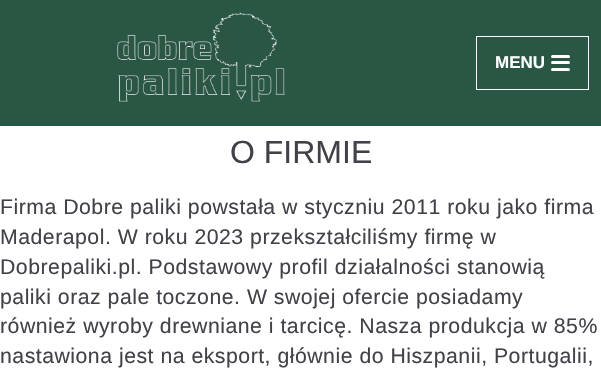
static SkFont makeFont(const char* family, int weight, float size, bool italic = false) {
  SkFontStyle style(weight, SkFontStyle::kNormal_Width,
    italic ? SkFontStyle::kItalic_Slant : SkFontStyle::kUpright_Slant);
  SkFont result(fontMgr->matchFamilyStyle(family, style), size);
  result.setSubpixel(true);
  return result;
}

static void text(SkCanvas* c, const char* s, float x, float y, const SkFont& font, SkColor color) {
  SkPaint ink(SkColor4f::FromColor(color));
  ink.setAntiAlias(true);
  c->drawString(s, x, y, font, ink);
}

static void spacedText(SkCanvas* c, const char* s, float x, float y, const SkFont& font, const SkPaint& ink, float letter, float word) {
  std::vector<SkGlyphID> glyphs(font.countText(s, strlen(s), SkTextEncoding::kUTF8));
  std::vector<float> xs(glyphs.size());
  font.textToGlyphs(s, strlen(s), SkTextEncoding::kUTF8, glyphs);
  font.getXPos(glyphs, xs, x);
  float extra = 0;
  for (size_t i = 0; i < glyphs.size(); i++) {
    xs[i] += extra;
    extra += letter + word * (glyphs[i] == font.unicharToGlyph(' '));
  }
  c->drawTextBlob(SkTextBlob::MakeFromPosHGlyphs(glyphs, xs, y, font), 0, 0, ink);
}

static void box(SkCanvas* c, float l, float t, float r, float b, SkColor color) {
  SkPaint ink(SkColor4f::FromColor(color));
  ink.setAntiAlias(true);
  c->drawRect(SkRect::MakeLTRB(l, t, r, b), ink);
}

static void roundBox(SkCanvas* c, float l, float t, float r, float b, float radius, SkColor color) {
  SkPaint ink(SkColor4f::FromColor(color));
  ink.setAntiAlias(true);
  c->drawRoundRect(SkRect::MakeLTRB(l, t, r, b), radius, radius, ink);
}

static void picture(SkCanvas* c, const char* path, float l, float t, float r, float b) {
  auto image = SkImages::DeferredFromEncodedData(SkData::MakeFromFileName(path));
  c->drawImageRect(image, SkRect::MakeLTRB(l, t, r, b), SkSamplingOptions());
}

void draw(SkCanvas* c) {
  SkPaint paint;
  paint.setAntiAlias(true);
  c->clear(0xffffffff);
  box(c, 0, 0, 601, 126, 0xff2a5744);
  picture(c, "img_01.png", 117, 12, 285, 102);
  paint.setStyle(SkPaint::kStroke_Style);
  paint.setStrokeWidth(1);
  paint.setColor(0xffffffff);
  c->drawRect(SkRect::MakeLTRB(476.5f, 36.5f, 588.5f, 89.5f), paint);
  SkFont face1 = makeFont("Liberation Sans", 700, 17);
  text(c, "MENU", 495, 68, face1, 0xffffffff);
  roundBox(c, 551, 55, 570, 58, 1.5f, 0xffffffff);
  roundBox(c, 551, 61, 570, 64, 1.5f, 0xffffffff);
  roundBox(c, 551, 68, 570, 71, 1.5f, 0xffffffff);
  SkFont face2 = makeFont("Liberation Sans", 400, 32);
  text(c, "O FIRMIE", 230, 163, face2, 0xff404248);
  SkFont face3 = makeFont("Liberation Sans", 400, 21.25f);
  paint.setStyle(SkPaint::kFill_Style);
  paint.setColor(0xff404248);
  spacedText(c, "Firma Dobre paliki powstała w styczniu 2011 roku jako firma", 0, 214, face3, paint, 0.5f, 0);
  spacedText(c, "Maderapol. W roku 2023 przekształciliśmy firmę w", 0, 244, face3, paint, 0.5f, 0);
  spacedText(c, "Dobrepaliki.pl. Podstawowy profil działalności stanowią", 0, 274, face3, paint, 0.5f, 0);
  spacedText(c, "paliki oraz pale toczone. W swojej ofercie posiadamy", 0, 304, face3, paint, 0.5f, 0);
  spacedText(c, "również wyroby drewniane i tarcicę. Nasza produkcja w 85%", 0, 333, face3, paint, 0.5f, 0);
  spacedText(c, "nastawiona jest na eksport, głównie do Hiszpanii, Portugalii,", 0, 363, face3, paint, 0.5f, 0);
}
